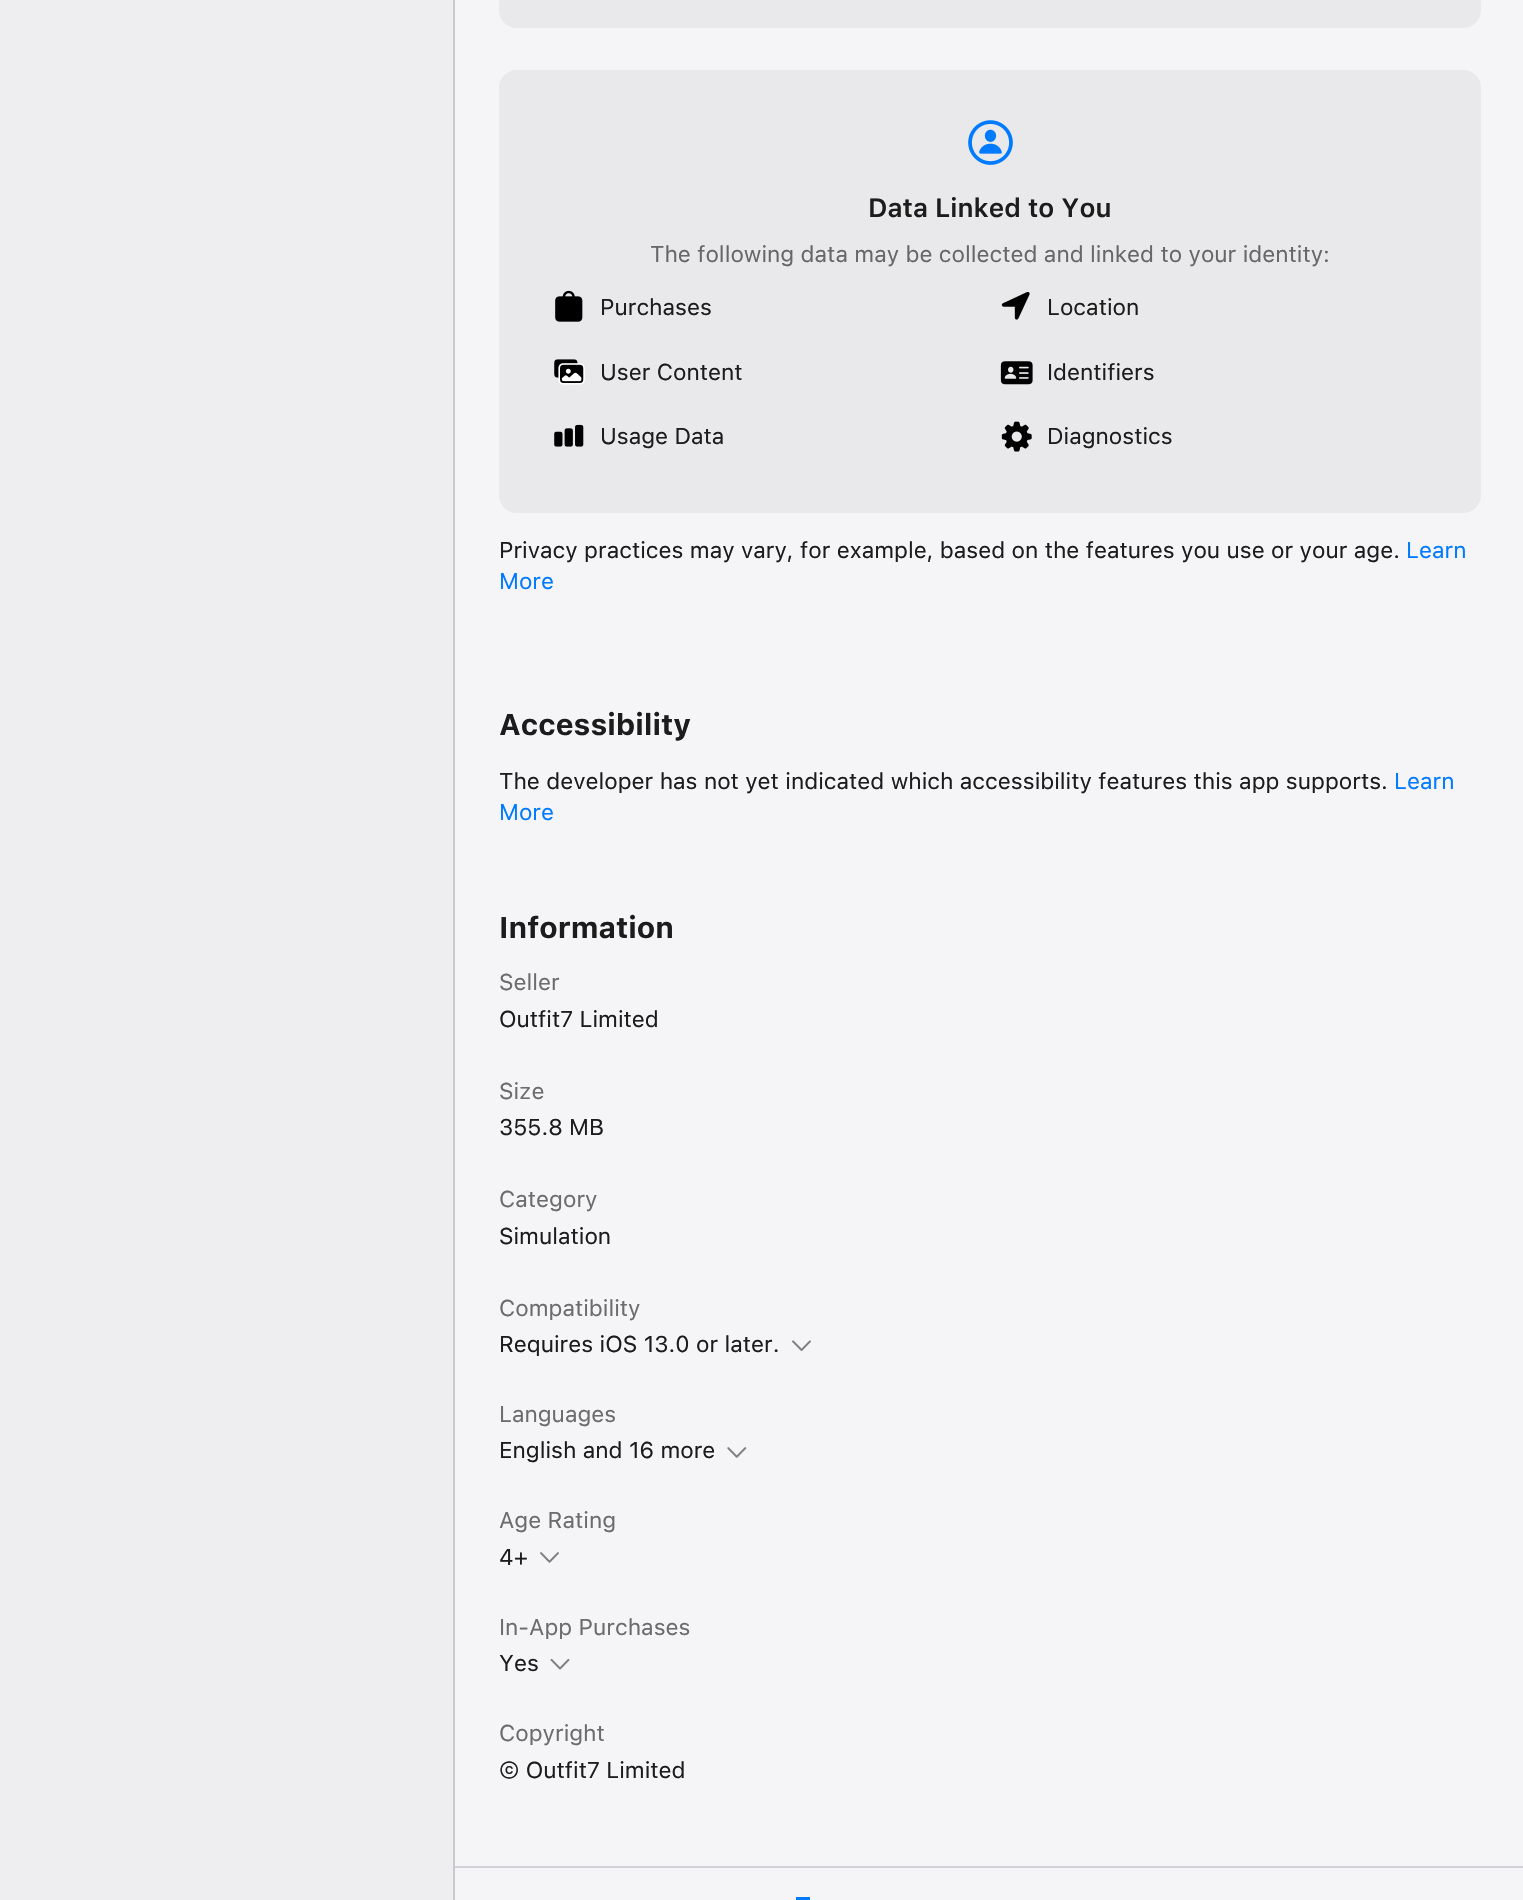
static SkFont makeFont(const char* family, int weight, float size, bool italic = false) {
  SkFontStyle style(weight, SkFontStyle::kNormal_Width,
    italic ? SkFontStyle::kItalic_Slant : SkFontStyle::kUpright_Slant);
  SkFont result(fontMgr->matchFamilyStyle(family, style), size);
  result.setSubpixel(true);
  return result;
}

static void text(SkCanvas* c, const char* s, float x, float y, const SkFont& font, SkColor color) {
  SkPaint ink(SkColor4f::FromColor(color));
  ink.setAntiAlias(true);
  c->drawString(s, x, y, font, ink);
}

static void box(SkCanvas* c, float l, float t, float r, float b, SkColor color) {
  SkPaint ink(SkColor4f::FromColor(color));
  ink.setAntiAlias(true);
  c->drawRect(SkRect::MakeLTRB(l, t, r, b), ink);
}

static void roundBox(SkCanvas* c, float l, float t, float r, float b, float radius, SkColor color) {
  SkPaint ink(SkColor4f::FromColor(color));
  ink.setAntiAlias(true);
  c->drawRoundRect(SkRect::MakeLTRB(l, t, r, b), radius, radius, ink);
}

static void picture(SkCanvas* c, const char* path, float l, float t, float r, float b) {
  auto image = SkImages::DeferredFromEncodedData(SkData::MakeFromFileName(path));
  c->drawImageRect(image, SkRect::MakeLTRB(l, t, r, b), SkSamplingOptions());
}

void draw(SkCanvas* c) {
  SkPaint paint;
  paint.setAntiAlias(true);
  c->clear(0xfff5f5f7);
  box(c, 0, 0, 453, 1900, 0xffeeeef0);
  box(c, 453, 0, 455, 1900, 0xffcacacc);
  roundBox(c, 499, -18, 1481, 28, 18, 0xffe9e9eb);
  roundBox(c, 499, 70, 1481, 513, 18, 0xffe9e9eb);
  picture(c, "img_01.png", 968, 120, 1013, 165);
  SkFont face1 = makeFont("SF", 600, 26.25f);
  text(c, "Data Linked to You", 868, 217, face1, 0xff1c1c1c);
  SkFont face2 = makeFont("SF", 400, 22.75f);
  text(c, "The following data may be collected and linked to your identity:", 650, 262, face2, 0xff676767);
  picture(c, "img_02.png", 555, 290, 583, 322);
  text(c, "Purchases", 600, 315, face2, 0xff1c1c1c);
  picture(c, "img_03.png", 1001, 292, 1030, 320);
  text(c, "Location", 1047, 315, face2, 0xff1c1c1c);
  picture(c, "img_04.png", 554, 359, 585, 385);
  text(c, "User Content", 600, 380, face2, 0xff1c1c1c);
  picture(c, "img_05.png", 1000, 361, 1033, 385);
  text(c, "Identifiers", 1047, 380, face2, 0xff1c1c1c);
  picture(c, "img_06.png", 554, 424, 584, 447);
  text(c, "Usage Data", 600, 444, face2, 0xff1c1c1c);
  picture(c, "img_07.png", 1001, 421, 1032, 452);
  text(c, "Diagnostics", 1047, 444, face2, 0xff1c1c1c);
  text(c, "Privacy practices may vary, for example, based on the features you use or your age.", 499, 558, face2, 0xff1c1c1c);
  text(c, "Learn", 1406, 558, face2, 0xff007aff);
  text(c, "More", 499, 589, face2, 0xff007aff);
  SkFont face3 = makeFont("SF", 700, 29.75f);
  text(c, "Accessibility", 499, 735, face3, 0xff1c1c1c);
  text(c, "The developer has not yet indicated which accessibility features this app supports.", 499, 789, face2, 0xff1c1c1c);
  text(c, "Learn", 1394, 789, face2, 0xff007aff);
  text(c, "More", 499, 820, face2, 0xff007aff);
  text(c, "Information", 499, 938, face3, 0xff1c1c1c);
  text(c, "Seller", 499, 990, face2, 0xff6c6c6d);
  text(c, "Outfit7 Limited", 499, 1027, face2, 0xff1c1c1c);
  text(c, "Size", 499, 1099, face2, 0xff6c6c6d);
  text(c, "355.8 MB", 499, 1135, face2, 0xff1c1c1c);
  text(c, "Category", 499, 1207, face2, 0xff6c6c6d);
  text(c, "Simulation", 499, 1244, face2, 0xff1c1c1c);
  text(c, "Compatibility", 499, 1316, face2, 0xff6c6c6d);
  text(c, "Requires iOS 13.0 or later.", 499, 1352, face2, 0xff1c1c1c);
  picture(c, "img_08.png", 792, 1340, 811, 1351);
  text(c, "Languages", 499, 1422, face2, 0xff6c6c6d);
  text(c, "English and 16 more", 499, 1458, face2, 0xff1c1c1c);
  picture(c, "img_09.png", 727, 1447, 747, 1458);
  text(c, "Age Rating", 499, 1528, face2, 0xff6c6c6d);
  text(c, "4+", 499, 1565, face2, 0xff1c1c1c);
  picture(c, "img_10.png", 540, 1552, 559, 1563);
  text(c, "In-App Purchases", 499, 1635, face2, 0xff6c6c6d);
  text(c, "Yes", 499, 1671, face2, 0xff1c1c1c);
  picture(c, "img_11.png", 550, 1658, 570, 1670);
  text(c, "Copyright", 499, 1741, face2, 0xff6c6c6d);
  text(c, "© Outfit7 Limited", 499, 1778, face2, 0xff1c1c1c);
  box(c, 455, 1866, 1523, 1868, 0xffd1d1d6);
  box(c, 796, 1897, 810, 1900, 0xff007aff);
}
